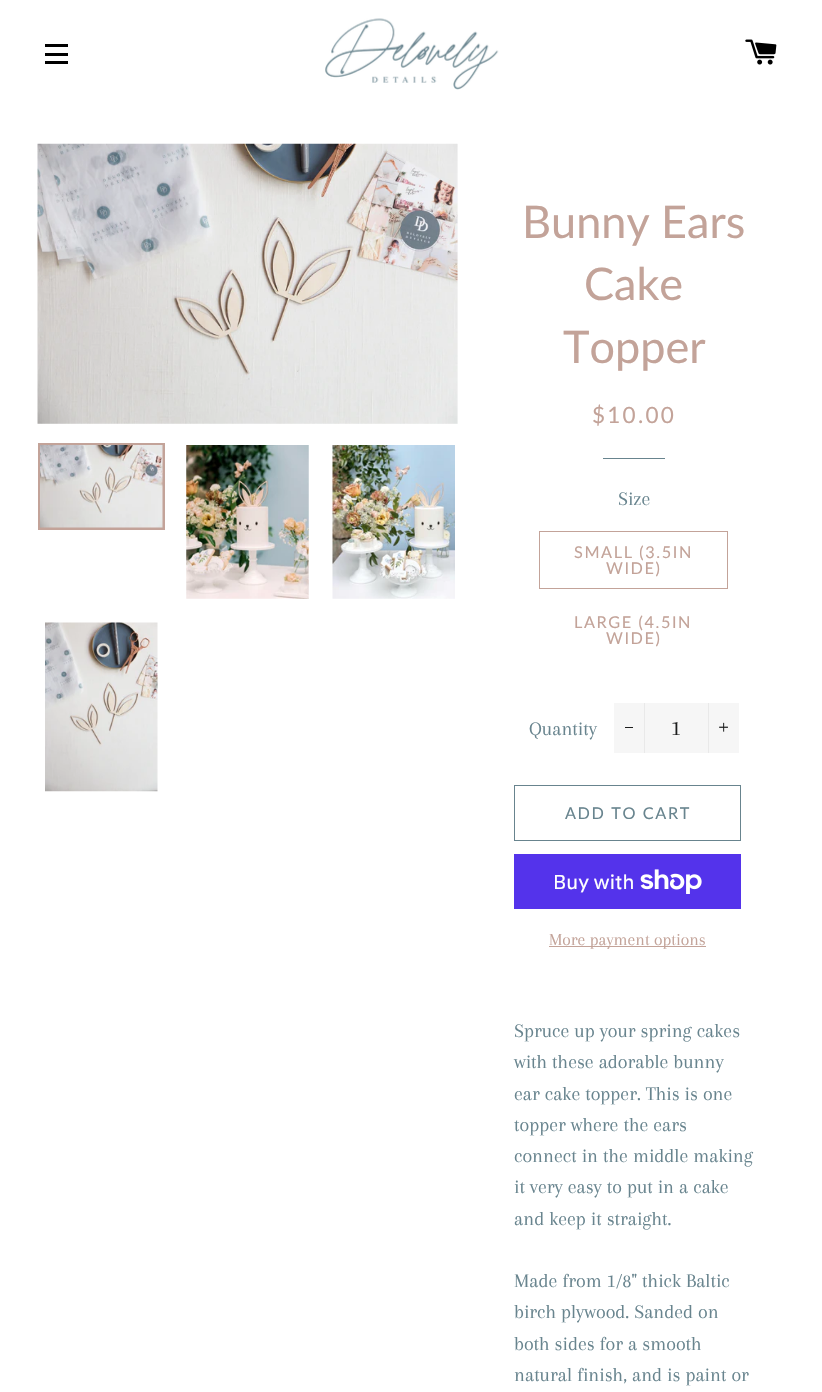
static SkFont makeFont(const char* family, int weight, float size, bool italic = false) {
  SkFontStyle style(weight, SkFontStyle::kNormal_Width,
    italic ? SkFontStyle::kItalic_Slant : SkFontStyle::kUpright_Slant);
  SkFont result(fontMgr->matchFamilyStyle(family, style), size);
  result.setSubpixel(true);
  return result;
}

static void text(SkCanvas* c, const char* s, float x, float y, const SkFont& font, SkColor color) {
  SkPaint ink(SkColor4f::FromColor(color));
  ink.setAntiAlias(true);
  c->drawString(s, x, y, font, ink);
}

static void spacedText(SkCanvas* c, const char* s, float x, float y, const SkFont& font, const SkPaint& ink, float letter, float word) {
  std::vector<SkGlyphID> glyphs(font.countText(s, strlen(s), SkTextEncoding::kUTF8));
  std::vector<float> xs(glyphs.size());
  font.textToGlyphs(s, strlen(s), SkTextEncoding::kUTF8, glyphs);
  font.getXPos(glyphs, xs, x);
  float extra = 0;
  for (size_t i = 0; i < glyphs.size(); i++) {
    xs[i] += extra;
    extra += letter + word * (glyphs[i] == font.unicharToGlyph(' '));
  }
  c->drawTextBlob(SkTextBlob::MakeFromPosHGlyphs(glyphs, xs, y, font), 0, 0, ink);
}

static void box(SkCanvas* c, float l, float t, float r, float b, SkColor color) {
  SkPaint ink(SkColor4f::FromColor(color));
  ink.setAntiAlias(true);
  c->drawRect(SkRect::MakeLTRB(l, t, r, b), ink);
}

static void picture(SkCanvas* c, const char* path, float l, float t, float r, float b) {
  auto image = SkImages::DeferredFromEncodedData(SkData::MakeFromFileName(path));
  c->drawImageRect(image, SkRect::MakeLTRB(l, t, r, b), SkSamplingOptions());
}

void draw(SkCanvas* c) {
  SkPaint paint;
  paint.setAntiAlias(true);
  c->clear(0xffffffff);
  box(c, 45, 44, 68, 47, 0xff000000);
  box(c, 45, 53, 68, 56, 0xff000000);
  box(c, 45, 61, 68, 64, 0xff000000);
  picture(c, "img_01.png", 325, 18, 499, 90);
  picture(c, "img_02.png", 745, 39, 777, 65);
  box(c, 38, 144, 458, 424, 0xfffafafa);
  picture(c, "img_03.png", 37, 143, 458, 424);
  paint.setStyle(SkPaint::kStroke_Style);
  paint.setStrokeWidth(3);
  paint.setColor(0xffc3a399);
  c->drawRect(SkRect::MakeLTRB(39.5f, 444.5f, 163.5f, 528.5f), paint);
  picture(c, "img_04.png", 40, 445, 163, 528);
  picture(c, "img_05.png", 186, 445, 309, 599);
  picture(c, "img_06.png", 332, 445, 455, 599);
  picture(c, "img_07.png", 45, 622, 158, 792);
  SkFont face1 = makeFont("Lato", 400, 45);
  text(c, "Bunny Ears", 522, 238, face1, 0xffc3a399);
  text(c, "Cake", 584, 300, face1, 0xffc3a399);
  text(c, "Topper", 563, 363, face1, 0xffc3a399);
  SkFont face2 = makeFont("Lato", 400, 22.5f);
  paint.setStyle(SkPaint::kFill_Style);
  spacedText(c, "$10.00", 592, 423, face2, paint, 2.25f, 0);
  box(c, 603, 458, 665, 459, 0xff68848e);
  SkFont face3 = makeFont("Arapey", 400, 20);
  text(c, "Size", 618, 505, face3, 0xff68848e);
  paint.setStyle(SkPaint::kStroke_Style);
  paint.setStrokeWidth(1);
  c->drawRect(SkRect::MakeLTRB(539.5f, 531.5f, 727.5f, 588.5f), paint);
  SkFont face4 = makeFont("Lato", 400, 16.25f);
  paint.setStyle(SkPaint::kFill_Style);
  spacedText(c, "SMALL (3.5IN", 574, 558, face4, paint, 1.6f, 0);
  spacedText(c, "WIDE)", 606, 574, face4, paint, 1.6f, 0);
  spacedText(c, "LARGE (4.5IN", 574, 628, face4, paint, 1.6f, 0);
  spacedText(c, "WIDE)", 606, 644, face4, paint, 1.6f, 0);
  text(c, "Quantity", 529, 735, face3, 0xff68848e);
  box(c, 614, 703, 739, 753, 0xfff6f6f6);
  box(c, 644, 703, 645, 753, 0xffe9e9e9);
  box(c, 625, 727, 633, 728, 0xff1c1d1d);
  SkFont face5 = makeFont("Arapey", 400, 22.5f);
  text(c, "1", 671, 735, face5, 0xff1c1d1d);
  box(c, 708, 703, 709, 753, 0xffe9e9e9);
  picture(c, "img_08.png", 719, 722, 728, 732);
  paint.setStyle(SkPaint::kStroke_Style);
  paint.setColor(0xff68848e);
  c->drawRect(SkRect::MakeLTRB(514.5f, 785.5f, 740.5f, 840.5f), paint);
  paint.setStyle(SkPaint::kFill_Style);
  spacedText(c, "ADD TO CART", 565, 819, face4, paint, 1.6f, 0);
  box(c, 514, 854, 741, 909, 0xff5433eb);
  SkFont face6 = makeFont("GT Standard", 400, 20);
  text(c, "Buy with", 553, 889, face6, 0xffffffff);
  picture(c, "img_09.png", 640, 869, 702, 894);
  box(c, 549, 946, 706, 947, 0xffc3a399);
  SkFont face7 = makeFont("Arapey", 400, 17.5f);
  text(c, "More payment options", 549, 945, face7, 0xffc3a399);
  text(c, "Spruce up your spring cakes", 514, 1037, face3, 0xff68848e);
  text(c, "with these adorable bunny", 514, 1068, face3, 0xff68848e);
  text(c, "ear cake topper. This is one", 514, 1100, face3, 0xff68848e);
  text(c, "topper where the ears", 514, 1131, face3, 0xff68848e);
  text(c, "connect in the middle making", 514, 1162, face3, 0xff68848e);
  text(c, "it very easy to put in a cake", 514, 1193, face3, 0xff68848e);
  text(c, "and keep it straight.", 514, 1225, face3, 0xff68848e);
  text(c, "Made from 1/8\" thick Baltic", 514, 1287, face3, 0xff68848e);
  text(c, "birch plywood. Sanded on", 514, 1318, face3, 0xff68848e);
  text(c, "both sides for a smooth", 514, 1350, face3, 0xff68848e);
  text(c, "natural finish, and is paint or", 514, 1381, face3, 0xff68848e);
}
